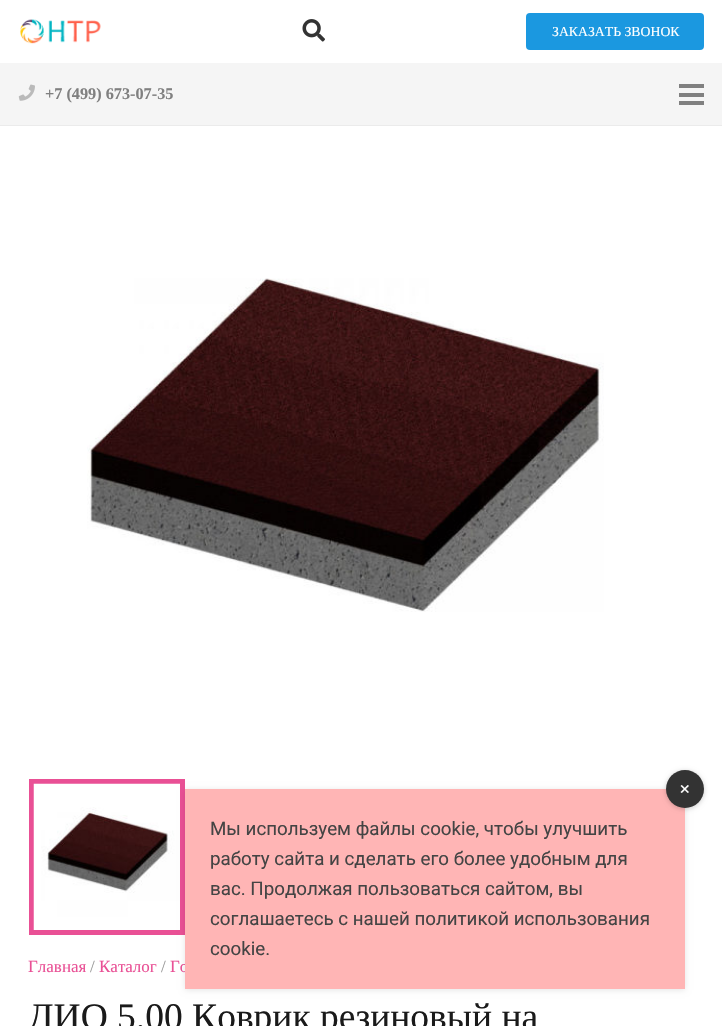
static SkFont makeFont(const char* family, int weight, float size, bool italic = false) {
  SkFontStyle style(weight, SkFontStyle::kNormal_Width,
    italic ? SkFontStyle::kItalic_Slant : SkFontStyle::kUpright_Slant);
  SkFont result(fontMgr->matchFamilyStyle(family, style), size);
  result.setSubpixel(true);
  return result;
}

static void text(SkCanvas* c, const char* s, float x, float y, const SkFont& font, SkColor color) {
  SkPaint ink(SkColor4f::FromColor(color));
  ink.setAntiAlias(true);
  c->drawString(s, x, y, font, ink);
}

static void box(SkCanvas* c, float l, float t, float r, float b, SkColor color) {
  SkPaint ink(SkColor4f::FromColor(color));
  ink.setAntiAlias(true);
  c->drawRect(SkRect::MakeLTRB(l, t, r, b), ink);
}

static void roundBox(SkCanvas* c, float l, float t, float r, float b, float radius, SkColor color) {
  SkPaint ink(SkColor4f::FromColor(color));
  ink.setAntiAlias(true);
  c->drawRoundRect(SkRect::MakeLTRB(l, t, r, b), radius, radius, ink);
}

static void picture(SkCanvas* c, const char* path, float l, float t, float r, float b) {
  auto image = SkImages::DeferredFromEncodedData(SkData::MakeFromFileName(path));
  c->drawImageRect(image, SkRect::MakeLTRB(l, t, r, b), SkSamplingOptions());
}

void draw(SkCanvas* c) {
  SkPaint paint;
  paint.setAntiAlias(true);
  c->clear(0xffffffff);
  picture(c, "img_01.png", 20, 19, 101, 44);
  picture(c, "img_02.png", 302, 19, 325, 42);
  roundBox(c, 526, 13, 704, 50, 4, 0xff1b98e0);
  SkFont face1 = makeFont("Liberation Serif", 400, 13.75f);
  text(c, "ЗАКАЗАТЬ ЗВОНОК", 552, 36, face1, 0xffffffff);
  paint.setColor(0xffebebeb);
  c->drawPath(SkPathBuilder().moveTo(0, 125).lineTo(0, 126).lineTo(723, 126).lineTo(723, 64).lineTo(722, 64).lineTo(722, 125).close().detach(), paint);
  box(c, 0, 63, 722, 125, 0xfff5f5f5);
  picture(c, "img_03.png", 18, 84, 35, 101);
  SkFont face2 = makeFont("Liberation Serif", 700, 16.25f);
  text(c, "+7 (499) 673-07-35", 45, 99, face2, 0xff808080);
  box(c, 679, 93, 704, 97, 0xff808080);
  box(c, 679, 84, 704, 88, 0xff808080);
  box(c, 679, 101, 704, 105, 0xff808080);
  picture(c, "img_04.png", 87, 278, 604, 612);
  paint.setStyle(SkPaint::kStroke_Style);
  paint.setStrokeWidth(5);
  paint.setColor(0xffe95095);
  c->drawRect(SkRect::MakeLTRB(31.5f, 781.5f, 182.5f, 932.5f), paint);
  picture(c, "img_05.png", 33, 783, 180, 930);
  SkFont face3 = makeFont("Liberation Serif", 400, 17);
  text(c, "Главная", 28, 972, face3, 0xffe95095);
  text(c, "/", 90, 972, face3, 0xff999999);
  text(c, "Каталог", 99, 972, face3, 0xffe95095);
  text(c, "/", 161, 972, face3, 0xff999999);
  text(c, "Го", 170, 972, face3, 0xffe95095);
  SkFont face4 = makeFont("Liberation Serif", 400, 37.5f);
  text(c, "ДИО 5.00 Коврик резиновый на", 28, 1029, face4, 0xff1a1a1a);
  paint.setStyle(SkPaint::kFill_Style);
  paint.setColor(0x1a000000);
  paint.setMaskFilter(SkMaskFilter::MakeBlur(kNormal_SkBlurStyle, 3));
  c->drawRect(SkRect::MakeLTRB(185, 790, 685, 990), paint);
  paint.setMaskFilter(nullptr);
  box(c, 185, 789, 685, 989, 0xffffb5b5);
  paint.setColor(0x33000000);
  paint.setMaskFilter(SkMaskFilter::MakeBlur(kNormal_SkBlurStyle, 2.5f));
  c->drawRoundRect(SkRect::MakeLTRB(666, 771, 704, 809), 19, 19, paint);
  paint.setMaskFilter(nullptr);
  paint.setColor(0xff333333);
  c->drawCircle(685, 789, 19, paint);
  SkFont face5 = makeFont("DejaVu Sans", 400, 13.75f);
  text(c, "✕", 679, 794, face5, 0xffffffff);
  SkFont face6 = makeFont("Roboto", 400, 18.75f);
  text(c, "Мы используем файлы cookie, чтобы улучшить", 210, 835, face6, 0xff444444);
  text(c, "работу сайта и сделать его более удобным для", 210, 865, face6, 0xff444444);
  text(c, "вас. Продолжая пользоваться сайтом, вы", 210, 895, face6, 0xff444444);
  text(c, "соглашаетесь с нашей политикой использования", 210, 925, face6, 0xff444444);
  text(c, "cookie.", 210, 955, face6, 0xff444444);
}
